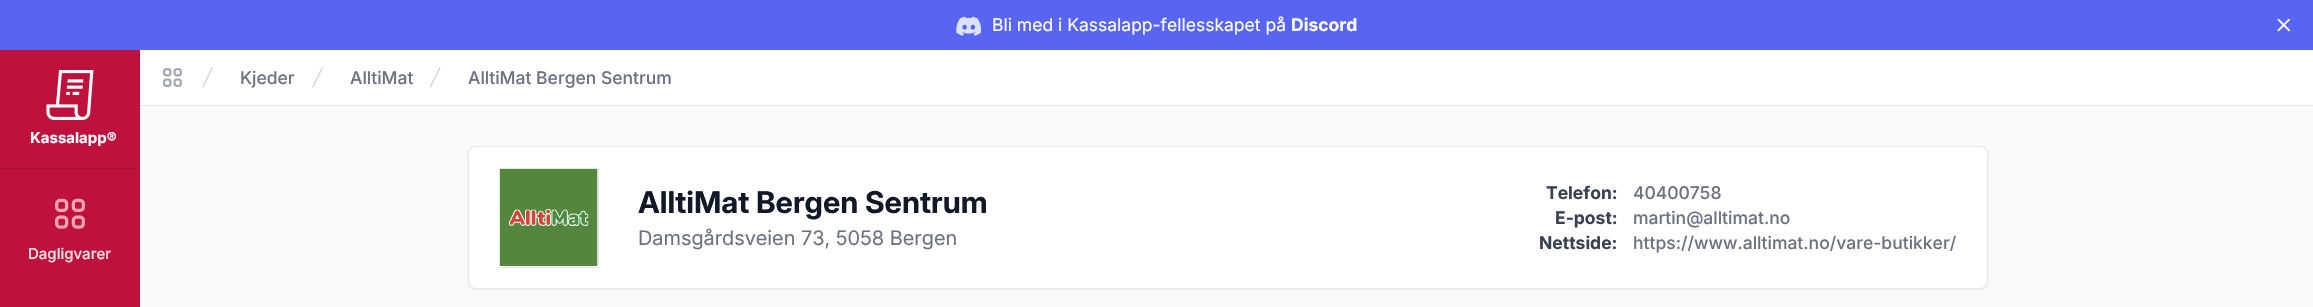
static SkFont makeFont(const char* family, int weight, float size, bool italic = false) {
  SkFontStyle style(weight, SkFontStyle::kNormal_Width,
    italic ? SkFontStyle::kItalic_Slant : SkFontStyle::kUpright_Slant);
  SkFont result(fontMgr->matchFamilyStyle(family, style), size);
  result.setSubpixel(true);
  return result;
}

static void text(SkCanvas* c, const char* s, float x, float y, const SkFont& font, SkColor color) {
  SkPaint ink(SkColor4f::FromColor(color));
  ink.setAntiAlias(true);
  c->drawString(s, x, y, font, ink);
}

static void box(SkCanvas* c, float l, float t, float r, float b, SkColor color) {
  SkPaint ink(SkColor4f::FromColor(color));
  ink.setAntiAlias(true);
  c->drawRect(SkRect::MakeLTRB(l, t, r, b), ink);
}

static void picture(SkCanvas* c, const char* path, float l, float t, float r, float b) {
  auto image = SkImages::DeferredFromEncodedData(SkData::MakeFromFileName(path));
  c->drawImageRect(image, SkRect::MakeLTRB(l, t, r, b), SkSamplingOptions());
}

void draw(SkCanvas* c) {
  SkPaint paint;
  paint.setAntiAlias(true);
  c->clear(0xfff9fafb);
  box(c, 0, 0, 2313, 50, 0xff5865f2);
  picture(c, "img_01.png", 956, 16, 981, 36);
  SkFont face1 = makeFont("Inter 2", 400, 17.5f);
  text(c, "Bli med i Kassalapp-fellesskapet på", 992, 31, face1, 0xffffffff);
  SkFont face2 = makeFont("Inter", 700, 17.5f);
  text(c, "Discord", 1291, 31, face2, 0xffffffff);
  picture(c, "img_02.png", 2277, 18, 2290, 32);
  box(c, 0, 50, 140, 307, 0xffbe123c);
  picture(c, "img_03.png", 46, 70, 94, 120);
  SkFont face3 = makeFont("Inter", 700, 15);
  text(c, "Kassalapp®", 30, 143, face3, 0xffffffff);
  box(c, 0, 168, 140, 169, 0xff9f1239);
  picture(c, "img_04.png", 55, 198, 85, 229);
  SkFont face4 = makeFont("Inter", 500, 15);
  text(c, "Dagligvarer", 28, 259, face4, 0xffffe4e6);
  box(c, 140, 50, 2313, 105, 0xffffffff);
  box(c, 140, 105, 2313, 106, 0xffe5e7eb);
  picture(c, "img_05.png", 163, 68, 182, 87);
  paint.setColor(0xffd1d5db);
  c->drawPath(SkPathBuilder().moveTo(202, 87).lineTo(212, 67).lineTo(213, 68).lineTo(203, 88).close().detach(), paint);
  SkFont face5 = makeFont("Inter", 500, 17.5f);
  text(c, "Kjeder", 240, 84, face5, 0xff6b7280);
  c->drawPath(SkPathBuilder().moveTo(312, 87).lineTo(322, 67).lineTo(323, 68).lineTo(313, 88).close().detach(), paint);
  text(c, "AlltiMat", 350, 84, face5, 0xff6b7280);
  c->drawPath(SkPathBuilder().moveTo(429.5f, 87).lineTo(439.5f, 67).lineTo(440.5f, 68).lineTo(430.5f, 88).close().detach(), paint);
  text(c, "AlltiMat Bergen Sentrum", 468, 84, face5, 0xff6b7280);
  paint.setColor(0x0d000000);
  paint.setMaskFilter(SkMaskFilter::MakeBlur(kNormal_SkBlurStyle, 1));
  c->drawRoundRect(SkRect::MakeLTRB(468, 148, 1988, 290), 8, 8, paint);
  paint.setMaskFilter(nullptr);
  paint.setColor(0xffffffff);
  c->drawRoundRect(SkRect::MakeLTRB(468.5f, 146.5f, 1987.5f, 288.5f), 7.5f, 7.5f, paint);
  paint.setStyle(SkPaint::kStroke_Style);
  paint.setStrokeWidth(1);
  paint.setColor(0xffe5e7eb);
  c->drawRoundRect(SkRect::MakeLTRB(468.5f, 146.5f, 1987.5f, 288.5f), 7.5f, 7.5f, paint);
  c->drawRect(SkRect::MakeLTRB(499.5f, 168.5f, 598.5f, 267.5f), paint);
  picture(c, "img_06.png", 500, 169, 598, 266);
  SkFont face6 = makeFont("Inter 2", 700, 30);
  text(c, "AlltiMat Bergen Sentrum", 638, 213, face6, 0xff111827);
  SkFont face7 = makeFont("Inter", 400, 20);
  text(c, "Damsgårdsveien 73, 5058 Bergen", 638, 245, face7, 0xff6b7280);
  text(c, "Telefon:", 1546, 199, face2, 0xff374151);
  text(c, "40400758", 1633, 199, face5, 0xff6b7280);
  text(c, "E-post:", 1555, 224, face2, 0xff374151);
  text(c, "martin@alltimat.no", 1633, 224, face5, 0xff6b7280);
  text(c, "Nettside:", 1539, 249, face2, 0xff374151);
  text(c, "https://www.alltimat.no/vare-butikker/", 1633, 249, face5, 0xff6b7280);
}
